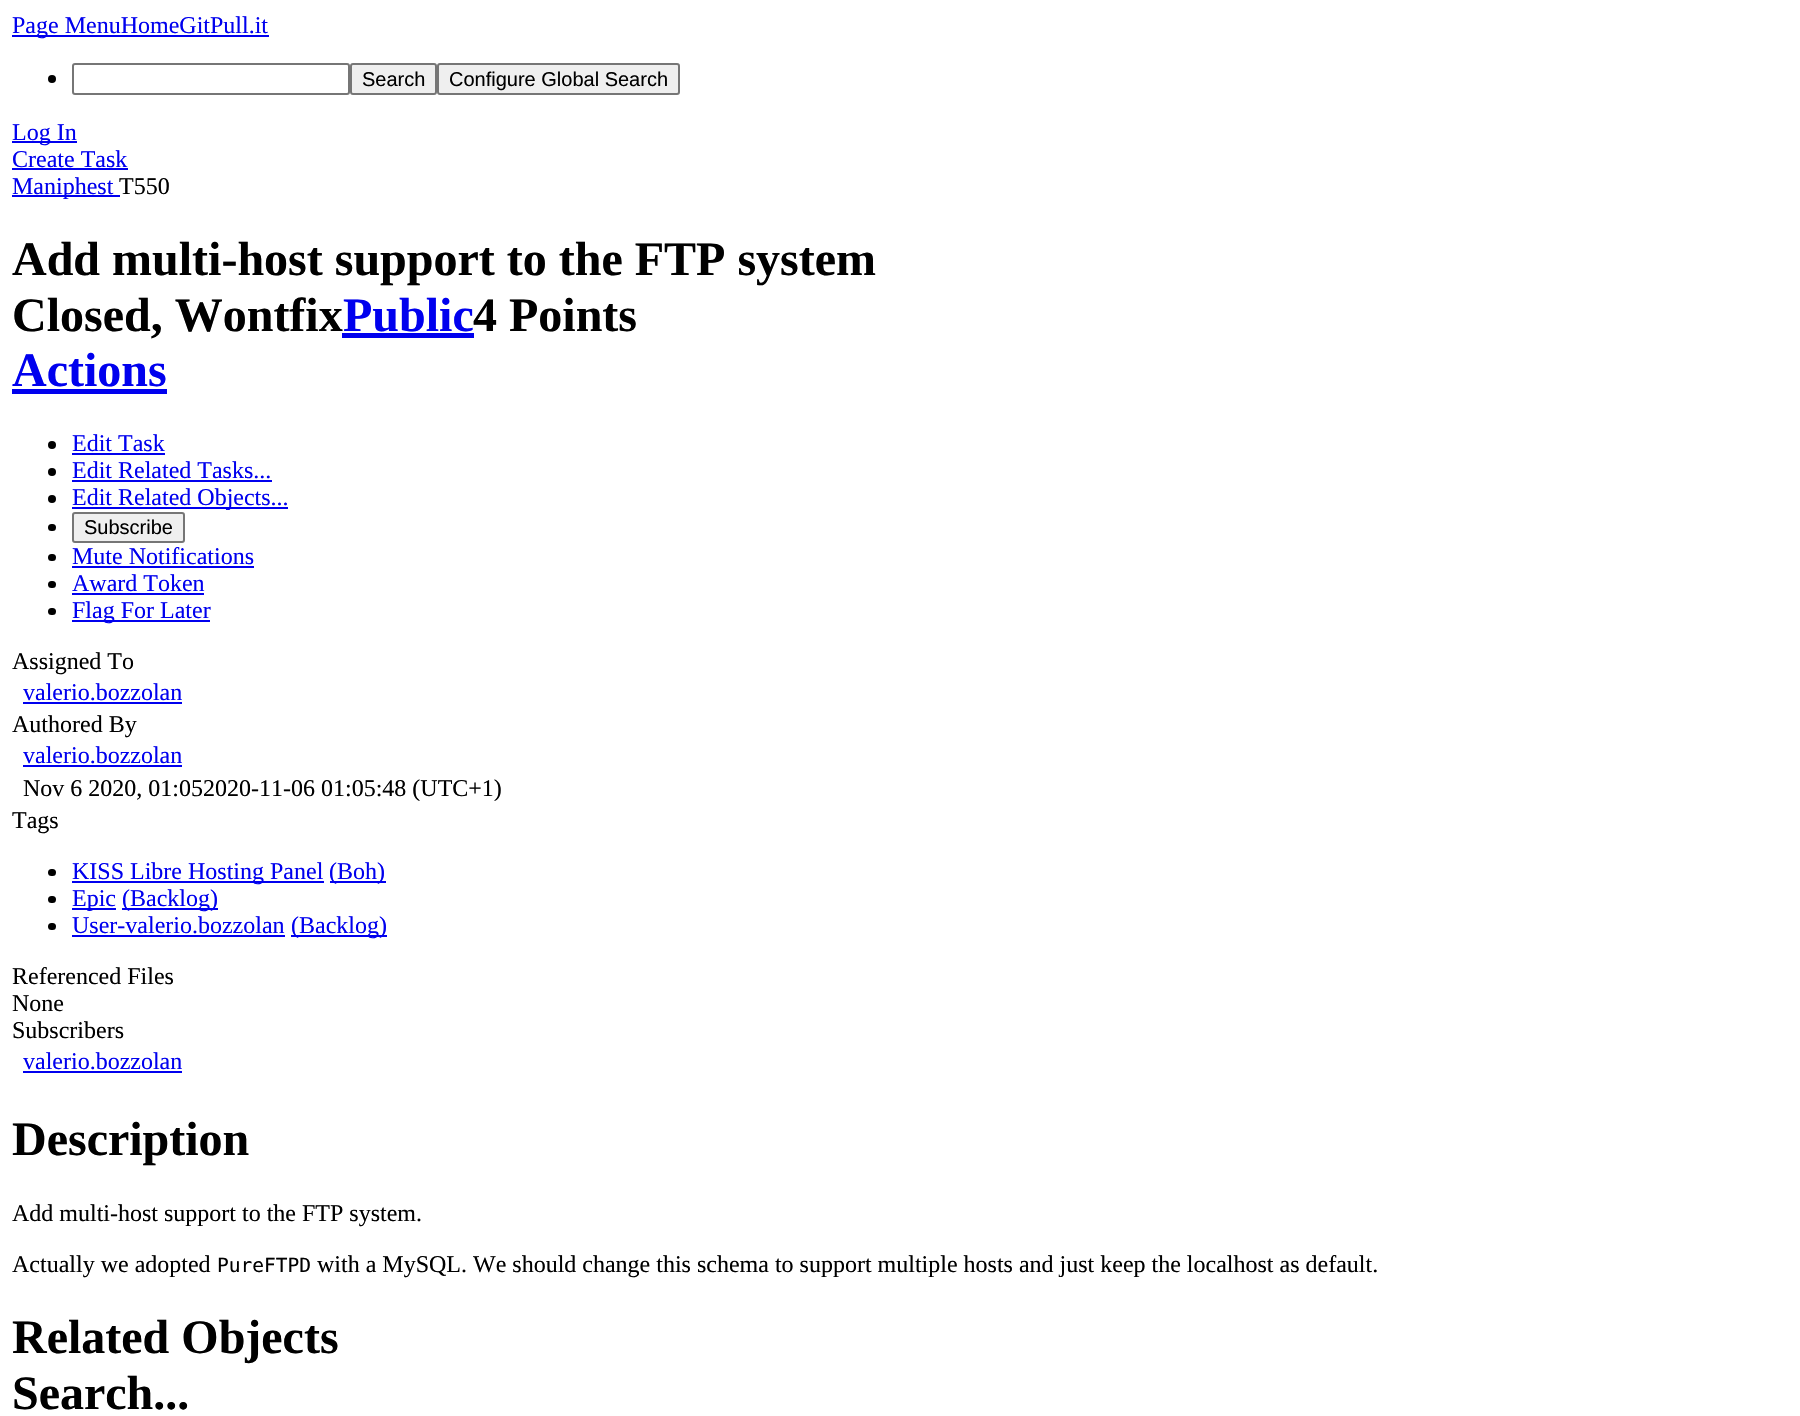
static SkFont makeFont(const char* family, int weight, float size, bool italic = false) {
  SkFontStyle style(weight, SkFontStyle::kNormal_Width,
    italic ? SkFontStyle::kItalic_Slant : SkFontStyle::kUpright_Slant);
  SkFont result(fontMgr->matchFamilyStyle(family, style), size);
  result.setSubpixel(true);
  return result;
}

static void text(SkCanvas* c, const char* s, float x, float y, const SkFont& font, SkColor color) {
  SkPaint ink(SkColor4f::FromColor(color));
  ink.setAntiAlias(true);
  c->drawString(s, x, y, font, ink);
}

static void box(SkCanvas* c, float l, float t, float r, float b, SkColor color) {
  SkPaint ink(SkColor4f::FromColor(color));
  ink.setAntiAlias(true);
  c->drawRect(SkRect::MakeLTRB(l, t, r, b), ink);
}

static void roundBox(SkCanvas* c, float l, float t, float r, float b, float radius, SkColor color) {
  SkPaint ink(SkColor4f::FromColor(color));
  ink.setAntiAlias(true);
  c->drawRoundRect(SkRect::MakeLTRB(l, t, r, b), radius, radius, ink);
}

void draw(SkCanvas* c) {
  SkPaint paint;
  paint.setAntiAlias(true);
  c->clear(0xffffffff);
  box(c, 12, 35, 120, 37, 0xff0000ee);
  SkFont face1 = makeFont("Liberation Serif", 400, 24);
  text(c, "Page MenuHomeGitPull.it", 12, 33, face1, 0xff0000ee);
  box(c, 120, 35, 269, 37, 0xff0000ee);
  paint.setColor(0xff000000);
  c->drawCircle(52, 79, 4, paint);
  paint.setStyle(SkPaint::kStroke_Style);
  paint.setStrokeWidth(2);
  paint.setColor(0xff767676);
  c->drawRoundRect(SkRect::MakeLTRB(73, 64, 349, 94), 2, 2, paint);
  paint.setStyle(SkPaint::kFill_Style);
  paint.setColor(0xffefefef);
  c->drawRoundRect(SkRect::MakeLTRB(351, 64, 436, 94), 2, 2, paint);
  paint.setStyle(SkPaint::kStroke_Style);
  paint.setColor(0xff767676);
  c->drawRoundRect(SkRect::MakeLTRB(351, 64, 436, 94), 2, 2, paint);
  SkFont face2 = makeFont("Liberation Sans", 400, 20);
  text(c, "Search", 362, 86, face2, 0xff000000);
  paint.setStyle(SkPaint::kFill_Style);
  paint.setColor(0xffefefef);
  c->drawRoundRect(SkRect::MakeLTRB(438, 64, 679, 94), 2, 2, paint);
  paint.setStyle(SkPaint::kStroke_Style);
  paint.setColor(0xff767676);
  c->drawRoundRect(SkRect::MakeLTRB(438, 64, 679, 94), 2, 2, paint);
  text(c, "Configure Global Search", 449, 86, face2, 0xff000000);
  box(c, 12, 141, 77, 143, 0xff0000ee);
  text(c, "Log In", 12, 140, face1, 0xff0000ee);
  text(c, "Create Task", 12, 167, face1, 0xff0000ee);
  box(c, 12, 168, 128, 170, 0xff0000ee);
  box(c, 12, 195, 120, 197, 0xff0000ee);
  text(c, "Maniphest", 12, 194, face1, 0xff0000ee);
  text(c, "T550", 119, 194, face1, 0xff000000);
  SkFont face3 = makeFont("Liberation Serif", 700, 48);
  text(c, "Add multi-host support to the FTP system", 12, 275, face3, 0xff000000);
  text(c, "Closed, Wontfix", 12, 331, face3, 0xff000000);
  text(c, "Public", 343, 331, face3, 0xff0000ee);
  box(c, 342, 333, 474, 338, 0xff0000ee);
  text(c, "4 Points", 473, 331, face3, 0xff000000);
  text(c, "Actions", 12, 386, face3, 0xff0000ee);
  box(c, 12, 389, 167, 394, 0xff0000ee);
  paint.setStyle(SkPaint::kFill_Style);
  paint.setColor(0xff000000);
  c->drawCircle(52, 445, 4, paint);
  text(c, "Edit Task", 72, 451, face1, 0xff0000ee);
  box(c, 72, 453, 165, 455, 0xff0000ee);
  c->drawCircle(52, 472, 4, paint);
  text(c, "Edit Related Tasks...", 72, 478, face1, 0xff0000ee);
  box(c, 72, 480, 272, 482, 0xff0000ee);
  c->drawCircle(52, 499, 4, paint);
  box(c, 72, 507, 288, 509, 0xff0000ee);
  text(c, "Edit Related Objects...", 72, 505, face1, 0xff0000ee);
  roundBox(c, 48, 524, 56, 531, 3.5f, 0xff000000);
  paint.setColor(0xffefefef);
  c->drawRoundRect(SkRect::MakeLTRB(73, 513, 184, 542), 2, 2, paint);
  paint.setStyle(SkPaint::kStroke_Style);
  paint.setColor(0xff767676);
  c->drawRoundRect(SkRect::MakeLTRB(73, 513, 184, 542), 2, 2, paint);
  text(c, "Subscribe", 84, 534, face2, 0xff000000);
  roundBox(c, 48, 554, 56, 561, 3.5f, 0xff000000);
  text(c, "Mute Notifications", 72, 564, face1, 0xff0000ee);
  box(c, 72, 566, 254, 568, 0xff0000ee);
  roundBox(c, 48, 581, 56, 588, 3.5f, 0xff000000);
  text(c, "Award Token", 72, 591, face1, 0xff0000ee);
  box(c, 72, 593, 204, 595, 0xff0000ee);
  roundBox(c, 48, 608, 56, 615, 3.5f, 0xff000000);
  box(c, 72, 620, 210, 622, 0xff0000ee);
  text(c, "Flag For Later", 72, 618, face1, 0xff0000ee);
  text(c, "Assigned To", 12, 669, face1, 0xff000000);
  text(c, "valerio.bozzolan", 23, 700, face1, 0xff0000ee);
  box(c, 23, 702, 182, 704, 0xff0000ee);
  text(c, "Authored By", 12, 732, face1, 0xff000000);
  text(c, "valerio.bozzolan", 23, 763, face1, 0xff0000ee);
  box(c, 23, 765, 182, 767, 0xff0000ee);
  text(c, "Nov 6 2020, 01:052020-11-06 01:05:48 (UTC+1)", 23, 796, face1, 0xff000000);
  text(c, "Tags", 12, 828, face1, 0xff000000);
  roundBox(c, 48, 869, 56, 876, 3.5f, 0xff000000);
  box(c, 72, 881, 324, 883, 0xff0000ee);
  text(c, "KISS Libre Hosting Panel", 72, 879, face1, 0xff0000ee);
  box(c, 330, 881, 386, 883, 0xff0000ee);
  text(c, "(Boh)", 329, 879, face1, 0xff0000ee);
  roundBox(c, 48, 896, 56, 903, 3.5f, 0xff000000);
  box(c, 72, 908, 116, 910, 0xff0000ee);
  text(c, "Epic", 72, 906, face1, 0xff0000ee);
  box(c, 122, 908, 218, 910, 0xff0000ee);
  text(c, "(Backlog)", 122, 906, face1, 0xff0000ee);
  roundBox(c, 48, 923, 56, 930, 3.5f, 0xff000000);
  text(c, "User-valerio.bozzolan", 72, 933, face1, 0xff0000ee);
  box(c, 72, 935, 285, 937, 0xff0000ee);
  box(c, 291, 935, 387, 937, 0xff0000ee);
  text(c, "(Backlog)", 291, 933, face1, 0xff0000ee);
  text(c, "Referenced Files", 12, 984, face1, 0xff000000);
  text(c, "None", 12, 1011, face1, 0xff000000);
  text(c, "Subscribers", 12, 1038, face1, 0xff000000);
  text(c, "valerio.bozzolan", 23, 1069, face1, 0xff0000ee);
  box(c, 23, 1071, 182, 1073, 0xff0000ee);
  text(c, "Description", 12, 1155, face3, 0xff000000);
  text(c, "Add multi-host support to the FTP system.", 12, 1221, face1, 0xff000000);
  text(c, "Actually we adopted", 12, 1272, face1, 0xff000000);
  SkFont face4 = makeFont("DejaVu Sans Mono", 400, 19.5f);
  text(c, "PureFTPD", 217, 1272, face4, 0xff000000);
  text(c, "with a MySQL. We should change this schema to support multiple hosts and just keep the localhost as default.", 317, 1272, face1, 0xff000000);
  text(c, "Related Objects", 12, 1353, face3, 0xff000000);
  text(c, "Search...", 12, 1409, face3, 0xff000000);
}
